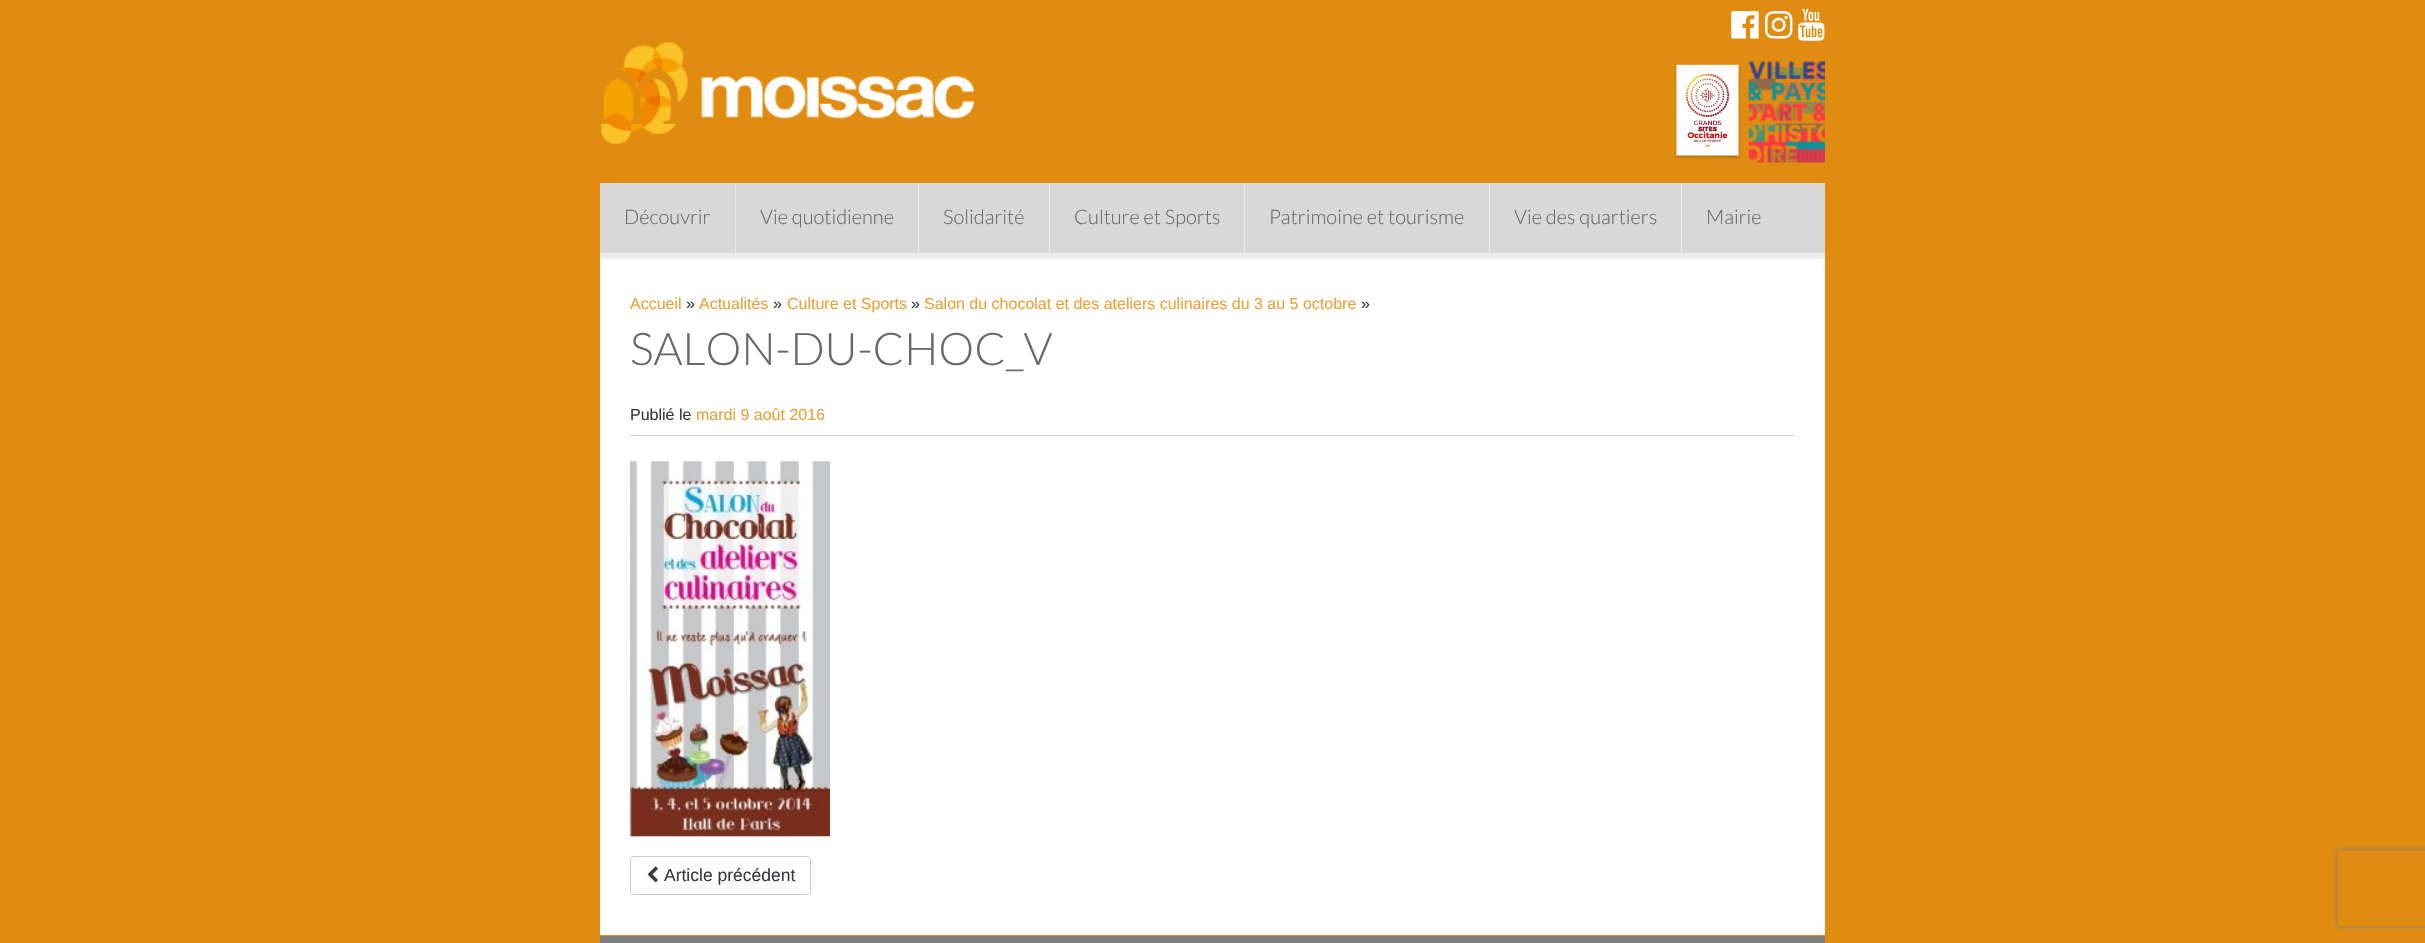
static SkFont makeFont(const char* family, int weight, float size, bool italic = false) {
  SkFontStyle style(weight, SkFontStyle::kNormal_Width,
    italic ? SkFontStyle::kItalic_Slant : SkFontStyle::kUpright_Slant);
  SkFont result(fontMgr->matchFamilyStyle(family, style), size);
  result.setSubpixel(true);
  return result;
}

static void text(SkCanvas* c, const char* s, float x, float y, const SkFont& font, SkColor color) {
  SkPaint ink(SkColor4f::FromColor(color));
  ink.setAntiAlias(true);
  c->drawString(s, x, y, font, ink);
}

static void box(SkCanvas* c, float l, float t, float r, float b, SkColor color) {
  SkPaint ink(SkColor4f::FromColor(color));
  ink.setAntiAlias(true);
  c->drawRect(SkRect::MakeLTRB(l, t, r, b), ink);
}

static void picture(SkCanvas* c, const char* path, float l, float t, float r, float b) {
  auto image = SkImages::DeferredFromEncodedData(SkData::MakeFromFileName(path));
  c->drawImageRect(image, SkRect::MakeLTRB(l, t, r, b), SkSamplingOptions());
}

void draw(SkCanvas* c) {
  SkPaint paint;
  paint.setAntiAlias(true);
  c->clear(0xffe08c10);
  picture(c, "img_01.png", 601, 42, 974, 144);
  picture(c, "img_02.png", 1731, 11, 1759, 39);
  picture(c, "img_03.png", 1765, 11, 1793, 39);
  picture(c, "img_04.png", 1798, 8, 1825, 41);
  picture(c, "img_05.png", 1674, 64, 1741, 160);
  picture(c, "img_06.png", 1748, 61, 1825, 163);
  box(c, 600, 183, 1825, 253, 0xffd8d8d8);
  SkFont face1 = makeFont("Lato", 300, 20);
  text(c, "Découvrir", 624, 224, face1, 0xff686868);
  box(c, 735, 183, 736, 253, 0xffe8e8e8);
  text(c, "Vie quotidienne", 760, 224, face1, 0xff686868);
  box(c, 918, 183, 919, 253, 0xffe8e8e8);
  text(c, "Solidarité", 943, 224, face1, 0xff686868);
  box(c, 1049, 183, 1050, 253, 0xffe8e8e8);
  text(c, "Culture et Sports", 1074, 224, face1, 0xff686868);
  box(c, 1244, 183, 1245, 253, 0xffe8e8e8);
  text(c, "Patrimoine et tourisme", 1269, 224, face1, 0xff686868);
  box(c, 1489, 183, 1490, 253, 0xffe8e8e8);
  text(c, "Vie des quartiers", 1514, 224, face1, 0xff686868);
  box(c, 1681, 183, 1682, 253, 0xffe8e8e8);
  text(c, "Mairie", 1706, 224, face1, 0xff686868);
  box(c, 600, 259, 1825, 935, 0xffffffff);
  box(c, 600, 253, 1825, 259, 0xffededed);
  SkFont face2 = makeFont("Liberation Sans", 400, 16);
  text(c, "Accueil", 630, 309, face2, 0xffeda036);
  text(c, "»", 686, 309, face2, 0xff373a3c);
  text(c, "Actualités", 699, 309, face2, 0xffeda036);
  text(c, "»", 773, 309, face2, 0xff373a3c);
  text(c, "Culture et Sports", 787, 309, face2, 0xffeda036);
  text(c, "»", 911, 309, face2, 0xff373a3c);
  text(c, "Salon du chocolat et des ateliers culinaires du 3 au 5 octobre", 924, 309, face2, 0xffeda036);
  text(c, "»", 1361, 309, face2, 0xff373a3c);
  SkFont face3 = makeFont("Lato", 300, 45);
  text(c, "SALON-DU-CHOC_V", 630, 365, face3, 0xff686868);
  box(c, 630, 435, 1795, 436, 0xffdad5c2);
  text(c, "Publié le", 630, 420, face2, 0xff373a3c);
  text(c, "mardi 9 août 2016", 696, 420, face2, 0xffeda036);
  picture(c, "img_07.png", 630, 461, 830, 837);
  paint.setStyle(SkPaint::kStroke_Style);
  paint.setStrokeWidth(1);
  paint.setColor(0xffcccccc);
  c->drawRoundRect(SkRect::MakeLTRB(630.5f, 856.5f, 810.5f, 894.5f), 3.5f, 3.5f, paint);
  picture(c, "img_08.png", 647, 866, 658, 883);
  SkFont face4 = makeFont("Liberation Sans", 400, 17.5f);
  text(c, "Article précédent", 664, 881, face4, 0xff373a3c);
  box(c, 600, 936, 1825, 943, 0xff7d7d7d);
  c->save();
  c->clipPath(SkPathBuilder(SkPathFillType::kEvenOdd).moveTo(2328, 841).lineTo(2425, 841).lineTo(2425, 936).lineTo(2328, 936).close().moveTo(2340.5f, 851).lineTo(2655.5f, 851).cubicTo(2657, 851, 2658, 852, 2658, 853.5f).lineTo(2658, 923.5f).cubicTo(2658, 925, 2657, 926, 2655.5f, 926).lineTo(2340.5f, 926).cubicTo(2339, 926, 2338, 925, 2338, 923.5f).lineTo(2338, 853.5f).cubicTo(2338, 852, 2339, 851, 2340.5f, 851).close().detach(), true);
  paint.setStyle(SkPaint::kFill_Style);
  paint.setColor(0xff808080);
  paint.setMaskFilter(SkMaskFilter::MakeBlur(kNormal_SkBlurStyle, 3));
  c->drawRoundRect(SkRect::MakeLTRB(2338, 851, 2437, 926), 2.5f, 2.5f, paint);
  paint.setMaskFilter(nullptr);
  c->restore();
}
